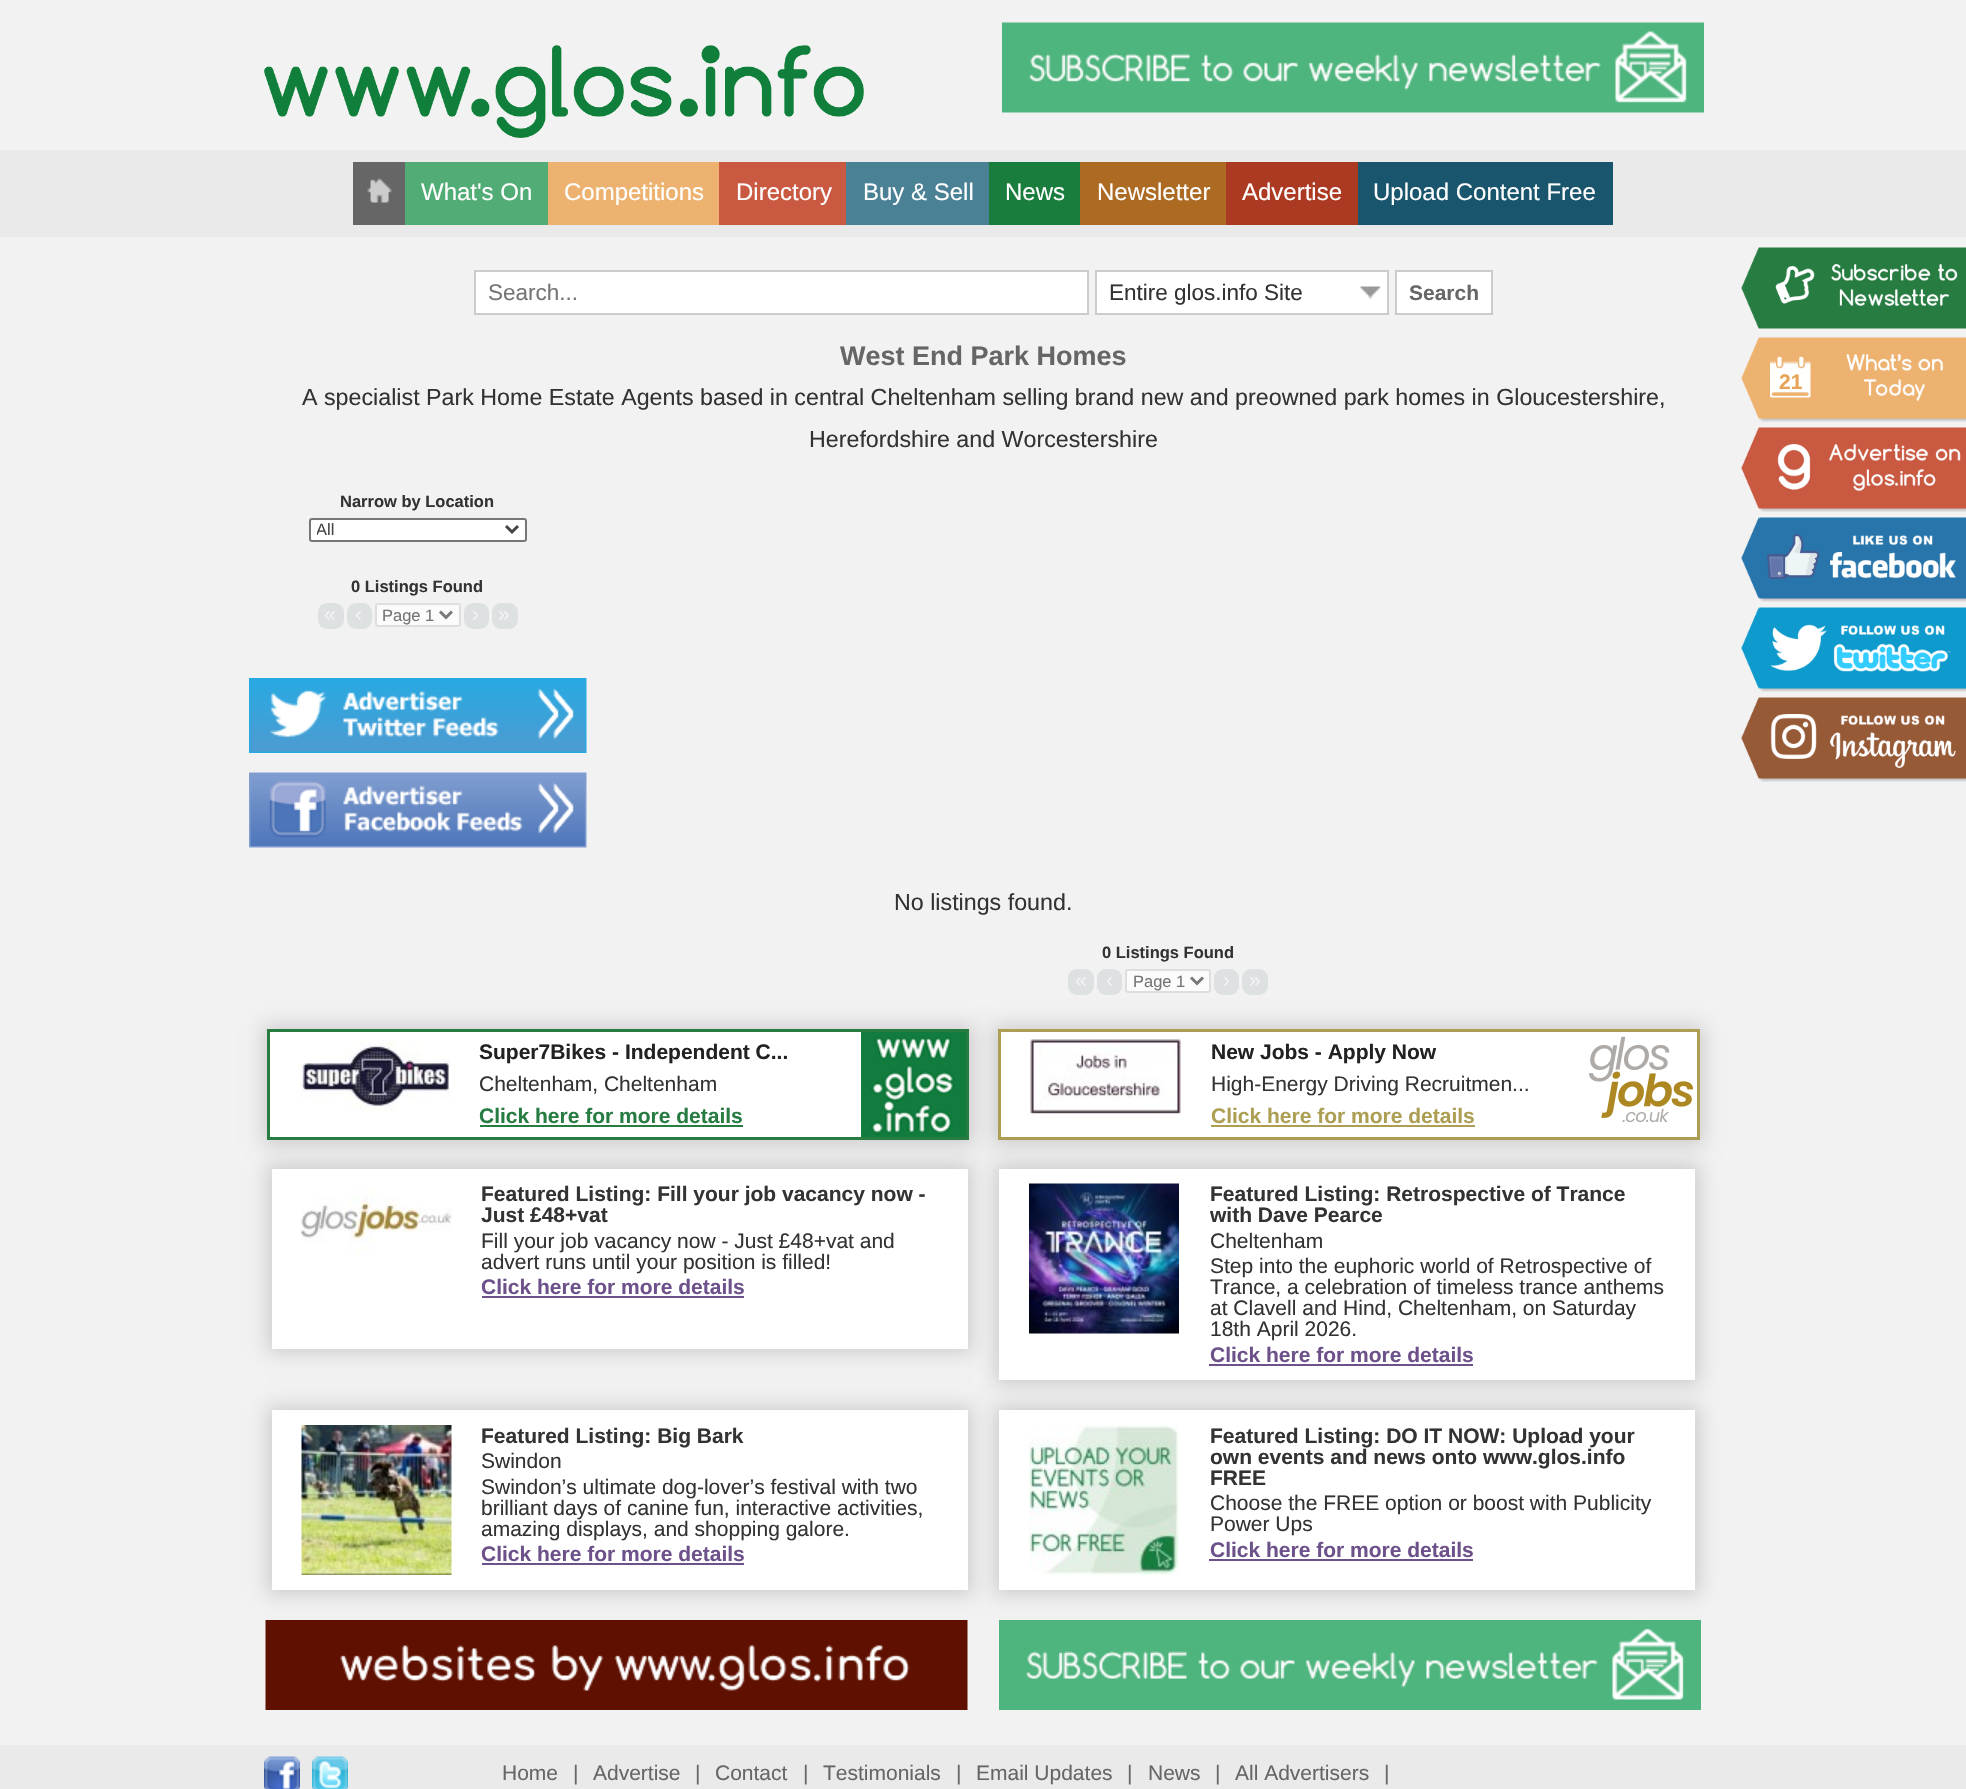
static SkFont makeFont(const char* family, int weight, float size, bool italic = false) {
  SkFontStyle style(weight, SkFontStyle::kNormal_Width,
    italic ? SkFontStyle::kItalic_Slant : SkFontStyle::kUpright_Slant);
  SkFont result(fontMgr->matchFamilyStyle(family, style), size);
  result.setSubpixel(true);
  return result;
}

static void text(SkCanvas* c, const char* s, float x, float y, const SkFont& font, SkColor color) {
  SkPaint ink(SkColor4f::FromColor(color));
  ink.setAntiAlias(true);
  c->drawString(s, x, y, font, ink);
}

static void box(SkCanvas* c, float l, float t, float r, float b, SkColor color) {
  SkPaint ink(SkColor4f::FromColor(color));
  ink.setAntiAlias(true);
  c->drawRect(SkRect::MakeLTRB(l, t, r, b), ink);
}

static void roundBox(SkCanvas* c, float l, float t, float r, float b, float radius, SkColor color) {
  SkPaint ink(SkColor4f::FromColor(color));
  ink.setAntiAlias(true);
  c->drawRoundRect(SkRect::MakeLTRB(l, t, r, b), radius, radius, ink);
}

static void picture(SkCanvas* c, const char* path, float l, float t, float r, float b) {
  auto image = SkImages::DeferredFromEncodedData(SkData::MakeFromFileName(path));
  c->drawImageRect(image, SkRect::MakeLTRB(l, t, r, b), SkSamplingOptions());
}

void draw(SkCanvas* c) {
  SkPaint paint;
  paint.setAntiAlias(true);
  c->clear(0xfff2f2f3);
  box(c, 0, 150, 1966, 237, 0xffeaeaea);
  box(c, 353, 162, 405, 225, 0xff666666);
  picture(c, "img_01.png", 367, 178, 392, 203);
  box(c, 405, 162, 548, 225, 0xff51ad75);
  SkFont face1 = makeFont("Liberation Sans", 400, 24);
  text(c, "What's On", 421, 200, face1, 0xffffffff);
  box(c, 548, 162, 719, 225, 0xffeeb270);
  text(c, "Competitions", 564, 200, face1, 0xffffffff);
  box(c, 719, 162, 846, 225, 0xffca5941);
  text(c, "Directory", 736, 200, face1, 0xffffffff);
  box(c, 846, 162, 989, 225, 0xff4a8195);
  text(c, "Buy & Sell", 863, 200, face1, 0xffffffff);
  box(c, 989, 162, 1080, 225, 0xff197d3e);
  text(c, "News", 1005, 200, face1, 0xffffffff);
  box(c, 1080, 162, 1226, 225, 0xffac6a22);
  text(c, "Newsletter", 1097, 200, face1, 0xffffffff);
  box(c, 1226, 162, 1358, 225, 0xffac3a22);
  text(c, "Advertise", 1242, 200, face1, 0xffffffff);
  box(c, 1358, 162, 1613, 225, 0xff19556c);
  text(c, "Upload Content Free", 1373, 200, face1, 0xffffffff);
  paint.setColor(0xffffffff);
  c->drawRect(SkRect::MakeLTRB(475, 271, 1088, 314), paint);
  paint.setStyle(SkPaint::kStroke_Style);
  paint.setStrokeWidth(2);
  paint.setColor(0xffcccccc);
  c->drawRect(SkRect::MakeLTRB(475, 271, 1088, 314), paint);
  SkFont face2 = makeFont("Liberation Sans", 400, 22.5f);
  text(c, "Search...", 488, 300, face2, 0xff757575);
  box(c, 1097, 272, 1387, 313, 0xffffffff);
  picture(c, "img_02.png", 1360, 286, 1381, 299);
  c->drawRect(SkRect::MakeLTRB(1096, 271, 1388, 314), paint);
  text(c, "Entire glos.info Site", 1109, 300, face2, 0xff333333);
  paint.setStyle(SkPaint::kFill_Style);
  paint.setColor(0xffffffff);
  c->drawRect(SkRect::MakeLTRB(1396, 271, 1492, 314), paint);
  paint.setStyle(SkPaint::kStroke_Style);
  paint.setColor(0xffcccccc);
  c->drawRect(SkRect::MakeLTRB(1396, 271, 1492, 314), paint);
  SkFont face3 = makeFont("Liberation Sans", 700, 21);
  text(c, "Search", 1409, 300, face3, 0xff666666);
  SkFont face4 = makeFont("Liberation Sans", 700, 27);
  text(c, "West End Park Homes", 840, 365, face4, 0xff666666);
  SkFont face5 = makeFont("Liberation Sans", 400, 23.25f);
  text(c, "A specialist Park Home Estate Agents based in central Cheltenham selling brand new and preowned park homes in Gloucestershire,", 302, 405, face5, 0xff333333);
  text(c, "Herefordshire and Worcestershire", 809, 447, face5, 0xff333333);
  SkFont face6 = makeFont("Liberation Sans", 700, 16.5f);
  text(c, "Narrow by Location", 340, 507, face6, 0xff333333);
  paint.setStyle(SkPaint::kFill_Style);
  paint.setColor(0xffffffff);
  c->drawRoundRect(SkRect::MakeLTRB(310, 519, 526, 541), 2, 2, paint);
  paint.setStyle(SkPaint::kStroke_Style);
  paint.setColor(0xff767676);
  c->drawRoundRect(SkRect::MakeLTRB(310, 519, 526, 541), 2, 2, paint);
  paint.setStrokeWidth(3);
  paint.setColor(0xff444444);
  c->drawPath(SkPathBuilder().moveTo(506, 526).lineTo(512, 532).lineTo(518, 526).detach(), paint);
  c->save();
  c->clipRect(SkRect::MakeLTRB(317, 519, 501, 540));
  SkFont face7 = makeFont("Liberation Sans", 400, 16.5f);
  text(c, "All", 316, 535, face7, 0xff444444);
  c->restore();
  text(c, "0 Listings Found", 351, 592, face6, 0xff333333);
  roundBox(c, 318, 603, 344, 629, 9, 0xffdee1e1);
  SkFont face8 = makeFont("Liberation Sans", 400, 21);
  text(c, "«", 324, 621, face8, 0xfff3f3f4);
  roundBox(c, 347, 603, 372, 629, 9, 0xffdee1e1);
  text(c, "‹", 355, 621, face8, 0xfff3f3f4);
  roundBox(c, 375, 603, 461, 627, 3, 0xfffbfbfb);
  paint.setStrokeWidth(2);
  paint.setColor(0x4d9b9b9c);
  c->drawRoundRect(SkRect::MakeLTRB(376, 604, 460, 626), 2, 2, paint);
  paint.setStrokeWidth(3);
  paint.setColor(0xff787879);
  c->drawPath(SkPathBuilder().moveTo(440, 611.5f).lineTo(446, 617.5f).lineTo(452, 611.5f).detach(), paint);
  text(c, "Page 1", 382, 621, face7, 0xff757575);
  roundBox(c, 464, 603, 489, 629, 9, 0xffdee1e1);
  text(c, "›", 472, 621, face8, 0xfff3f3f4);
  roundBox(c, 492, 603, 518, 629, 9, 0xffdee1e1);
  text(c, "»", 498, 621, face8, 0xfff3f3f4);
  picture(c, "img_03.png", 249, 678, 587, 753);
  picture(c, "img_04.png", 249, 772, 587, 848);
  text(c, "No listings found.", 894, 910, face5, 0xff333333);
  text(c, "0 Listings Found", 1102, 958, face6, 0xff333333);
  roundBox(c, 1068, 969, 1094, 995, 9, 0xffdee1e1);
  text(c, "«", 1075, 987, face8, 0xfff3f3f4);
  roundBox(c, 1097, 969, 1122, 995, 9, 0xffdee1e1);
  text(c, "‹", 1106, 987, face8, 0xfff3f3f4);
  roundBox(c, 1125, 969, 1211, 993, 3, 0xfffbfbfb);
  paint.setStrokeWidth(2);
  paint.setColor(0x4d9b9b9c);
  c->drawRoundRect(SkRect::MakeLTRB(1126, 970, 1210, 992), 2, 2, paint);
  paint.setStrokeWidth(3);
  paint.setColor(0xff787879);
  c->drawPath(SkPathBuilder().moveTo(1191, 977.5f).lineTo(1197, 983.5f).lineTo(1203, 977.5f).detach(), paint);
  text(c, "Page 1", 1133, 987, face7, 0xff757575);
  roundBox(c, 1214, 969, 1239, 995, 9, 0xffdee1e1);
  text(c, "›", 1223, 987, face8, 0xfff3f3f4);
  roundBox(c, 1242, 969, 1268, 995, 9, 0xffdee1e1);
  text(c, "»", 1249, 987, face8, 0xfff3f3f4);
  picture(c, "img_05.png", 264, 45, 864, 138);
  picture(c, "img_06.png", 1002, 22, 1704, 113);
  picture(c, "img_07.png", 1741, 247, 1966, 329);
  picture(c, "img_08.png", 1741, 337, 1966, 422);
  text(c, "21", 1779, 389, face3, 0xffe7a356);
  picture(c, "img_09.png", 1741, 427, 1966, 512);
  picture(c, "img_10.png", 1741, 517, 1966, 602);
  picture(c, "img_11.png", 1741, 607, 1966, 692);
  picture(c, "img_12.png", 1741, 697, 1966, 782);
  paint.setStyle(SkPaint::kFill_Style);
  paint.setColor(0x26000000);
  paint.setMaskFilter(SkMaskFilter::MakeBlur(kNormal_SkBlurStyle, 9));
  c->drawRect(SkRect::MakeLTRB(263, 1025, 974, 1145), paint);
  paint.setMaskFilter(nullptr);
  box(c, 270, 1032, 861, 1137, 0xffffffff);
  picture(c, "img_13.png", 861, 1032, 966, 1137);
  paint.setStyle(SkPaint::kStroke_Style);
  paint.setColor(0xff277c42);
  c->drawRect(SkRect::MakeLTRB(268.5f, 1030.5f, 967.5f, 1138.5f), paint);
  picture(c, "img_14.png", 300, 1039, 450, 1112);
  text(c, "Super7Bikes - Independent C...", 479, 1059, face3, 0xff222222);
  text(c, "Cheltenham, Cheltenham", 479, 1091, face8, 0xff333333);
  text(c, "Click here for more details", 479, 1123, face3, 0xff277c42);
  box(c, 480, 1125, 743, 1127, 0xff277c42);
  paint.setStyle(SkPaint::kFill_Style);
  paint.setColor(0x26000000);
  paint.setMaskFilter(SkMaskFilter::MakeBlur(kNormal_SkBlurStyle, 9));
  c->drawRect(SkRect::MakeLTRB(993, 1025, 1704, 1145), paint);
  paint.setMaskFilter(nullptr);
  box(c, 1001, 1032, 1697, 1137, 0xffffffff);
  picture(c, "img_15.png", 1589, 1036, 1693, 1123);
  paint.setStyle(SkPaint::kStroke_Style);
  paint.setColor(0xffac9e53);
  c->drawRect(SkRect::MakeLTRB(999.5f, 1030.5f, 1698.5f, 1138.5f), paint);
  picture(c, "img_16.png", 1030, 1039, 1181, 1115);
  text(c, "New Jobs - Apply Now", 1211, 1059, face3, 0xff222222);
  text(c, "High-Energy Driving Recruitmen...", 1211, 1091, face8, 0xff333333);
  text(c, "Click here for more details", 1211, 1123, face3, 0xffac9e53);
  box(c, 1211, 1125, 1475, 1127, 0xffac9e53);
  paint.setStyle(SkPaint::kFill_Style);
  paint.setColor(0x26000000);
  paint.setMaskFilter(SkMaskFilter::MakeBlur(kNormal_SkBlurStyle, 9));
  c->drawRect(SkRect::MakeLTRB(267, 1164, 972, 1353), paint);
  paint.setMaskFilter(nullptr);
  box(c, 272, 1169, 968, 1349, 0xffffffff);
  picture(c, "img_17.png", 301, 1189, 452, 1255);
  text(c, "Featured Listing: Fill your job vacancy now -", 481, 1201, face3, 0xff333333);
  text(c, "Just £48+vat", 481, 1222, face3, 0xff333333);
  text(c, "Fill your job vacancy now - Just £48+vat and", 481, 1248, face8, 0xff333333);
  text(c, "advert runs until your position is filled!", 481, 1269, face8, 0xff333333);
  text(c, "Click here for more details", 481, 1294, face3, 0xff6d518a);
  box(c, 482, 1296, 744, 1298, 0xff6d518a);
  paint.setMaskFilter(SkMaskFilter::MakeBlur(kNormal_SkBlurStyle, 9));
  c->drawRect(SkRect::MakeLTRB(995, 1164, 1700, 1385), paint);
  paint.setMaskFilter(nullptr);
  box(c, 999, 1169, 1695, 1380, 0xffffffff);
  picture(c, "img_18.png", 1029, 1183, 1179, 1334);
  text(c, "Featured Listing: Retrospective of Trance", 1210, 1201, face3, 0xff333333);
  text(c, "with Dave Pearce", 1210, 1222, face3, 0xff333333);
  text(c, "Cheltenham", 1210, 1248, face8, 0xff333333);
  text(c, "Step into the euphoric world of Retrospective of", 1210, 1273, face8, 0xff333333);
  text(c, "Trance, a celebration of timeless trance anthems", 1210, 1294, face8, 0xff333333);
  text(c, "at Clavell and Hind, Cheltenham, on Saturday", 1210, 1315, face8, 0xff333333);
  text(c, "18th April 2026.", 1210, 1336, face8, 0xff333333);
  text(c, "Click here for more details", 1210, 1362, face3, 0xff6d518a);
  box(c, 1209, 1364, 1473, 1366, 0xff6d518a);
  picture(c, "img_21.png", 265, 1620, 968, 1710);
  picture(c, "img_22.png", 999, 1620, 1701, 1710);
  paint.setMaskFilter(SkMaskFilter::MakeBlur(kNormal_SkBlurStyle, 9));
  c->drawRect(SkRect::MakeLTRB(267, 1406, 972, 1595), paint);
  paint.setMaskFilter(nullptr);
  box(c, 272, 1410, 968, 1590, 0xffffffff);
  picture(c, "img_19.png", 301, 1425, 452, 1575);
  text(c, "Featured Listing: Big Bark", 481, 1443, face3, 0xff333333);
  text(c, "Swindon", 481, 1468, face8, 0xff333333);
  text(c, "Swindon’s ultimate dog-lover’s festival with two", 481, 1494, face8, 0xff333333);
  text(c, "brilliant days of canine fun, interactive activities,", 481, 1515, face8, 0xff333333);
  text(c, "amazing displays, and shopping galore.", 481, 1536, face8, 0xff333333);
  text(c, "Click here for more details", 481, 1561, face3, 0xff6d518a);
  box(c, 482, 1563, 744, 1565, 0xff6d518a);
  paint.setMaskFilter(SkMaskFilter::MakeBlur(kNormal_SkBlurStyle, 9));
  c->drawRect(SkRect::MakeLTRB(995, 1406, 1700, 1595), paint);
  paint.setMaskFilter(nullptr);
  box(c, 999, 1410, 1695, 1590, 0xffffffff);
  picture(c, "img_20.png", 1029, 1425, 1179, 1575);
  text(c, "Featured Listing: DO IT NOW: Upload your", 1210, 1443, face3, 0xff333333);
  text(c, "own events and news onto www.glos.info", 1210, 1464, face3, 0xff333333);
  text(c, "FREE", 1210, 1485, face3, 0xff333333);
  text(c, "Choose the FREE option or boost with Publicity", 1210, 1510, face8, 0xff333333);
  text(c, "Power Ups", 1210, 1531, face8, 0xff333333);
  text(c, "Click here for more details", 1210, 1557, face3, 0xff6d518a);
  box(c, 1209, 1559, 1473, 1561, 0xff6d518a);
  box(c, 0, 1745, 1966, 1789, 0xffeaeaea);
  picture(c, "img_23.png", 264, 1756, 300, 1789);
  picture(c, "img_24.png", 312, 1756, 348, 1789);
  text(c, "Home", 502, 1780, face8, 0xff666666);
  text(c, "|", 573, 1780, face8, 0xff666666);
  text(c, "Advertise", 593, 1780, face8, 0xff666666);
  text(c, "|", 695, 1780, face8, 0xff666666);
  text(c, "Contact", 715, 1780, face8, 0xff666666);
  text(c, "|", 803, 1780, face8, 0xff666666);
  text(c, "Testimonials", 823, 1780, face8, 0xff666666);
  text(c, "|", 956, 1780, face8, 0xff666666);
  text(c, "Email Updates", 976, 1780, face8, 0xff666666);
  text(c, "|", 1127, 1780, face8, 0xff666666);
  text(c, "News", 1148, 1780, face8, 0xff666666);
  text(c, "|", 1215, 1780, face8, 0xff666666);
  text(c, "All Advertisers", 1235, 1780, face8, 0xff666666);
  text(c, "|", 1384, 1780, face8, 0xff666666);
}
